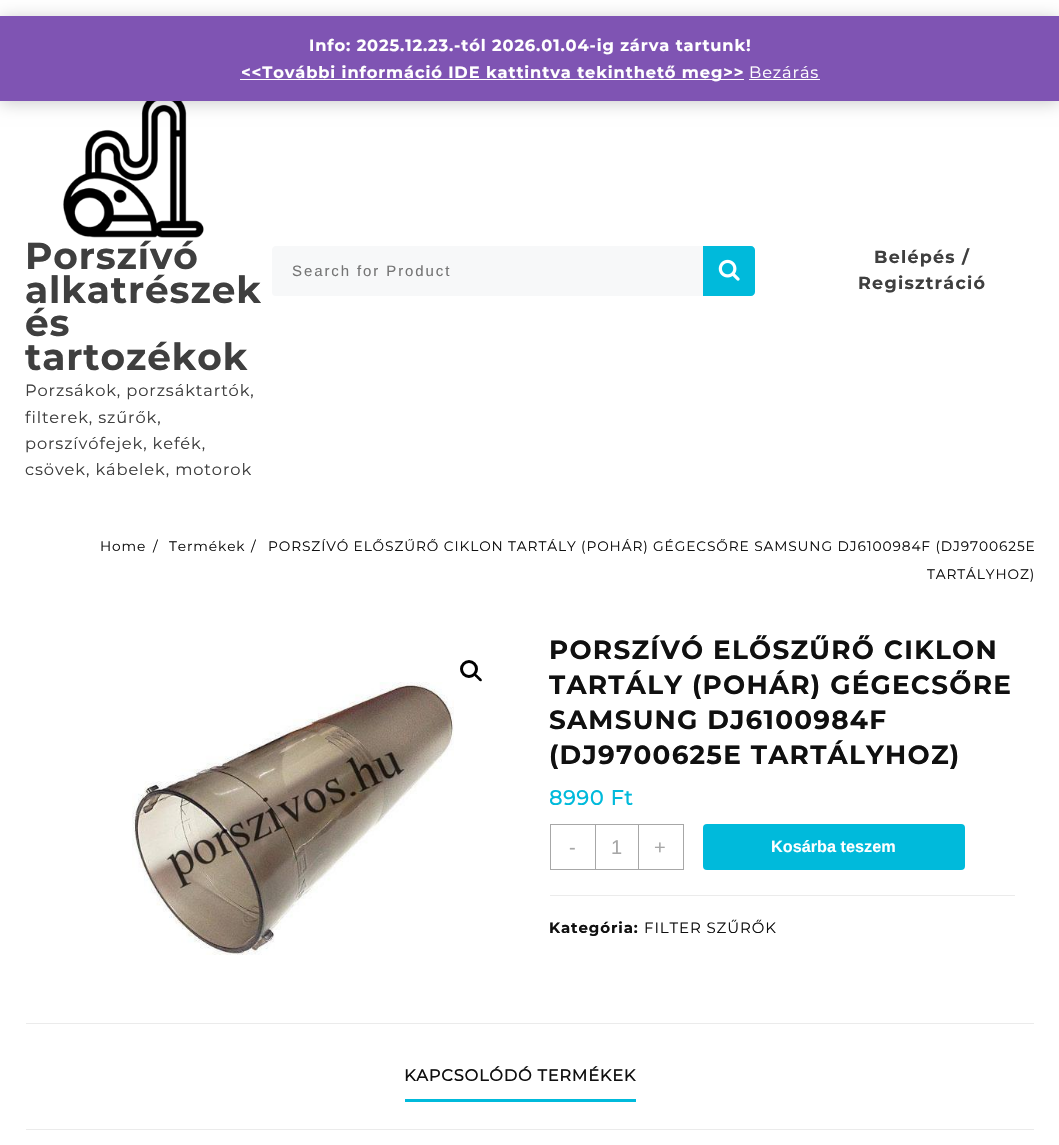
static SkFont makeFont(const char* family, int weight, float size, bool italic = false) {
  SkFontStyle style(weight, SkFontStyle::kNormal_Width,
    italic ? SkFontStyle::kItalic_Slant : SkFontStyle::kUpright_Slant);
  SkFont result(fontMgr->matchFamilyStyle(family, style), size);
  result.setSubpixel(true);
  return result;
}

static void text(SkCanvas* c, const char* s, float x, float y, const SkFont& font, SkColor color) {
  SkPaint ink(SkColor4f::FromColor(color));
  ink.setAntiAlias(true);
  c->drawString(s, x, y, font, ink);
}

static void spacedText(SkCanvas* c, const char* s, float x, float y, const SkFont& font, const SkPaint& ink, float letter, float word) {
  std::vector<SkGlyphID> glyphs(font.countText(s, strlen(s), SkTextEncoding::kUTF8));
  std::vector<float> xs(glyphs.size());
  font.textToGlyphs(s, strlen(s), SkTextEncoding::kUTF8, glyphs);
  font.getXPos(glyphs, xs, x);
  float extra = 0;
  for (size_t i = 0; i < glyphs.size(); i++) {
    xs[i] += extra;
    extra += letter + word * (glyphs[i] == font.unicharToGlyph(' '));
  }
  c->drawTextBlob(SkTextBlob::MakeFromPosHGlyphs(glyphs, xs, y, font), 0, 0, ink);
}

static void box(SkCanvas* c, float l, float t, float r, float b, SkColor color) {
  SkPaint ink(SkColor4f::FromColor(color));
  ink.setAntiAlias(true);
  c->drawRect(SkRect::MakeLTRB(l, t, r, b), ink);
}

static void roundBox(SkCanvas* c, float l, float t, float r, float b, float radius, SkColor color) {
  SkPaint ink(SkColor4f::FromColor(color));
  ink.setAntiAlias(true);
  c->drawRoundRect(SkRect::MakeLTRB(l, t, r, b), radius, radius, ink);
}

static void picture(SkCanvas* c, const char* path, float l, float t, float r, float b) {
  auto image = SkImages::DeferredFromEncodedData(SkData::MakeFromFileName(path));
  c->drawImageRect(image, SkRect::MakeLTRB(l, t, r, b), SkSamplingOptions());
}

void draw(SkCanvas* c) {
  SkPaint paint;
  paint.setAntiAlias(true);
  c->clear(0xffffffff);
  picture(c, "img_01.png", 63, 101, 204, 238);
  paint.setColor(0x33000000);
  paint.setMaskFilter(SkMaskFilter::MakeBlur(kNormal_SkBlurStyle, 8));
  c->drawRect(SkRect::MakeLTRB(0, 18, 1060, 103), paint);
  paint.setMaskFilter(nullptr);
  box(c, 0, 16, 1059, 101, 0xff7f54b3);
  SkFont face1 = makeFont("Montserrat", 700, 16.25f);
  paint.setColor(0xffffffff);
  spacedText(c, "Info: 2025.12.23.-tól 2026.01.04-ig zárva tartunk!", 309, 51, face1, paint, 0.88f, 0);
  box(c, 240, 79, 744, 80, 0xffffffff);
  spacedText(c, "<<További információ IDE kattintva tekinthető meg>>", 241, 78, face1, paint, 0.88f, 0);
  SkFont face2 = makeFont("Montserrat", 400, 16.25f);
  spacedText(c, "Bezárás", 749, 78, face2, paint, 0.88f, 0);
  box(c, 749, 79, 820, 80, 0xffffffff);
  SkFont face3 = makeFont("Montserrat", 700, 37.5f);
  paint.setColor(0xff3f3f3f);
  spacedText(c, "Porszívó", 25, 269, face3, paint, 0.88f, 0);
  spacedText(c, "alkatrészek", 25, 303, face3, paint, 0.88f, 0);
  spacedText(c, "és", 25, 336, face3, paint, 0.88f, 0);
  spacedText(c, "tartozékok", 25, 370, face3, paint, 0.88f, 0);
  spacedText(c, "Porzsákok, porzsáktartók,", 25, 396, face2, paint, 0.88f, 0);
  spacedText(c, "filterek, szűrők,", 25, 423, face2, paint, 0.88f, 0);
  spacedText(c, "porszívófejek, kefék,", 25, 449, face2, paint, 0.88f, 0);
  spacedText(c, "csövek, kábelek, motorok", 25, 475, face2, paint, 0.88f, 0);
  paint.setColor(0xfff7f8f9);
  c->drawPath(SkPathBuilder().moveTo(277, 246).lineTo(703, 246).lineTo(703, 296).lineTo(277, 296).cubicTo(275, 296, 273, 294, 273, 292).lineTo(273, 250).cubicTo(273, 248, 275, 246, 277, 246).close().detach(), paint);
  c->drawPath(SkPathBuilder(SkPathFillType::kEvenOdd).moveTo(276, 246).lineTo(702, 246).lineTo(702, 296).lineTo(276, 296).cubicTo(274, 296, 272, 295, 272, 292).lineTo(272, 250).cubicTo(272, 248, 274, 246, 276, 246).close().moveTo(276, 248).lineTo(702, 248).lineTo(702, 295).lineTo(276, 295).cubicTo(275, 295, 274, 294, 274, 292).lineTo(274, 250).cubicTo(274, 249, 275, 248, 276, 248).close().detach(), paint);
  SkFont face4 = makeFont("Liberation Sans", 400, 15);
  paint.setColor(0xff757575);
  spacedText(c, "Search for Product", 292, 276, face4, paint, 1.9f, 0);
  paint.setColor(0xff00badb);
  c->drawPath(SkPathBuilder().moveTo(703, 246).lineTo(751, 246).cubicTo(753, 246, 755, 248, 755, 250).lineTo(755, 292).cubicTo(755, 294, 753, 296, 751, 296).lineTo(703, 296).close().detach(), paint);
  picture(c, "img_02.png", 718, 259, 740, 281);
  SkFont face5 = makeFont("Montserrat", 700, 17.5f);
  paint.setColor(0xff3f3f3f);
  spacedText(c, "Belépés /", 874, 263, face5, paint, 1.25f, 0);
  spacedText(c, "Regisztráció", 858, 289, face5, paint, 1.25f, 0);
  SkFont face6 = makeFont("Montserrat", 400, 13.75f);
  paint.setColor(0xff101010);
  spacedText(c, "Home", 100, 551, face6, paint, 0.88f, 0);
  spacedText(c, "/", 153, 551, face6, paint, 0.88f, 0);
  spacedText(c, "Termékek", 169, 551, face6, paint, 0.88f, 0);
  spacedText(c, "/", 251, 551, face6, paint, 0.88f, 0);
  spacedText(c, "PORSZÍVÓ ELŐSZŰRŐ CIKLON TARTÁLY (POHÁR) GÉGECSŐRE SAMSUNG DJ6100984F (DJ9700625E", 268, 551, face6, paint, 0.88f, 0);
  spacedText(c, "TARTÁLYHOZ)", 927, 579, face6, paint, 0.88f, 0);
  paint.setStyle(SkPaint::kStroke_Style);
  paint.setStrokeWidth(3);
  paint.setColor(0xff000000);
  c->drawCircle(469, 669, 7.5f, paint);
  paint.setStyle(SkPaint::kFill_Style);
  c->drawPath(SkPathBuilder().moveTo(474.5f, 674).cubicTo(476, 672.5f, 478, 676, 479, 676.5f).cubicTo(479.5f, 677.5f, 483, 679.5f, 481.5f, 681).cubicTo(480, 682.5f, 478, 679, 477, 678.5f).cubicTo(476.5f, 677.5f, 473, 675.5f, 474.5f, 674).close().detach(), paint);
  picture(c, "img_03.png", 132, 682, 454, 955);
  SkFont face7 = makeFont("Montserrat", 700, 26.25f);
  paint.setColor(0xff101010);
  spacedText(c, "PORSZÍVÓ ELŐSZŰRŐ CIKLON", 549, 659, face7, paint, 1.25f, 0);
  spacedText(c, "TARTÁLY (POHÁR) GÉGECSŐRE", 549, 694, face7, paint, 1.25f, 0);
  spacedText(c, "SAMSUNG DJ6100984F", 549, 729, face7, paint, 1.25f, 0);
  spacedText(c, "(DJ9700625E TARTÁLYHOZ)", 549, 764, face7, paint, 1.25f, 0);
  SkFont face8 = makeFont("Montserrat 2", 700, 20.5f);
  paint.setColor(0xff00badb);
  spacedText(c, "8990 Ft", 549, 805, face8, paint, 0.88f, 0);
  paint.setStyle(SkPaint::kStroke_Style);
  paint.setStrokeWidth(1);
  paint.setColor(0xffa7a7a7);
  c->drawRect(SkRect::MakeLTRB(550.5f, 824.5f, 683.5f, 869.5f), paint);
  SkFont face9 = makeFont("Liberation Sans", 400, 20);
  text(c, "-", 569, 854, face9, 0xffa7a7a7);
  box(c, 638, 825, 639, 869, 0xffa7a7a7);
  box(c, 595, 825, 596, 869, 0xffa7a7a7);
  text(c, "1", 611, 854, face9, 0xffa7a7a7);
  text(c, "+", 654, 854, face9, 0xffa7a7a7);
  roundBox(c, 703, 824, 965, 870, 4, 0xff00badb);
  SkFont face10 = makeFont("Liberation Sans", 700, 16.25f);
  text(c, "Kosárba teszem", 771, 852, face10, 0xffffffff);
  box(c, 550, 895, 1015, 896, 0xffebebeb);
  SkFont face11 = makeFont("Montserrat", 700, 15);
  paint.setStyle(SkPaint::kFill_Style);
  paint.setColor(0xff101010);
  spacedText(c, "Kategória:", 549, 933, face11, paint, 0.88f, 0);
  SkFont face12 = makeFont("Montserrat", 400, 15);
  spacedText(c, "FILTER SZŰRŐK", 644, 933, face12, paint, 0.88f, 0);
  box(c, 26, 1023, 1034, 1024, 0xffebebeb);
  box(c, 26, 1129, 1034, 1130, 0xffebebeb);
  SkFont face13 = makeFont("Montserrat 2", 700, 16.25f);
  spacedText(c, "KAPCSOLÓDÓ TERMÉKEK", 404, 1081, face13, paint, 0.8f, 0);
  box(c, 405, 1099, 636, 1102, 0xff00badb);
}
